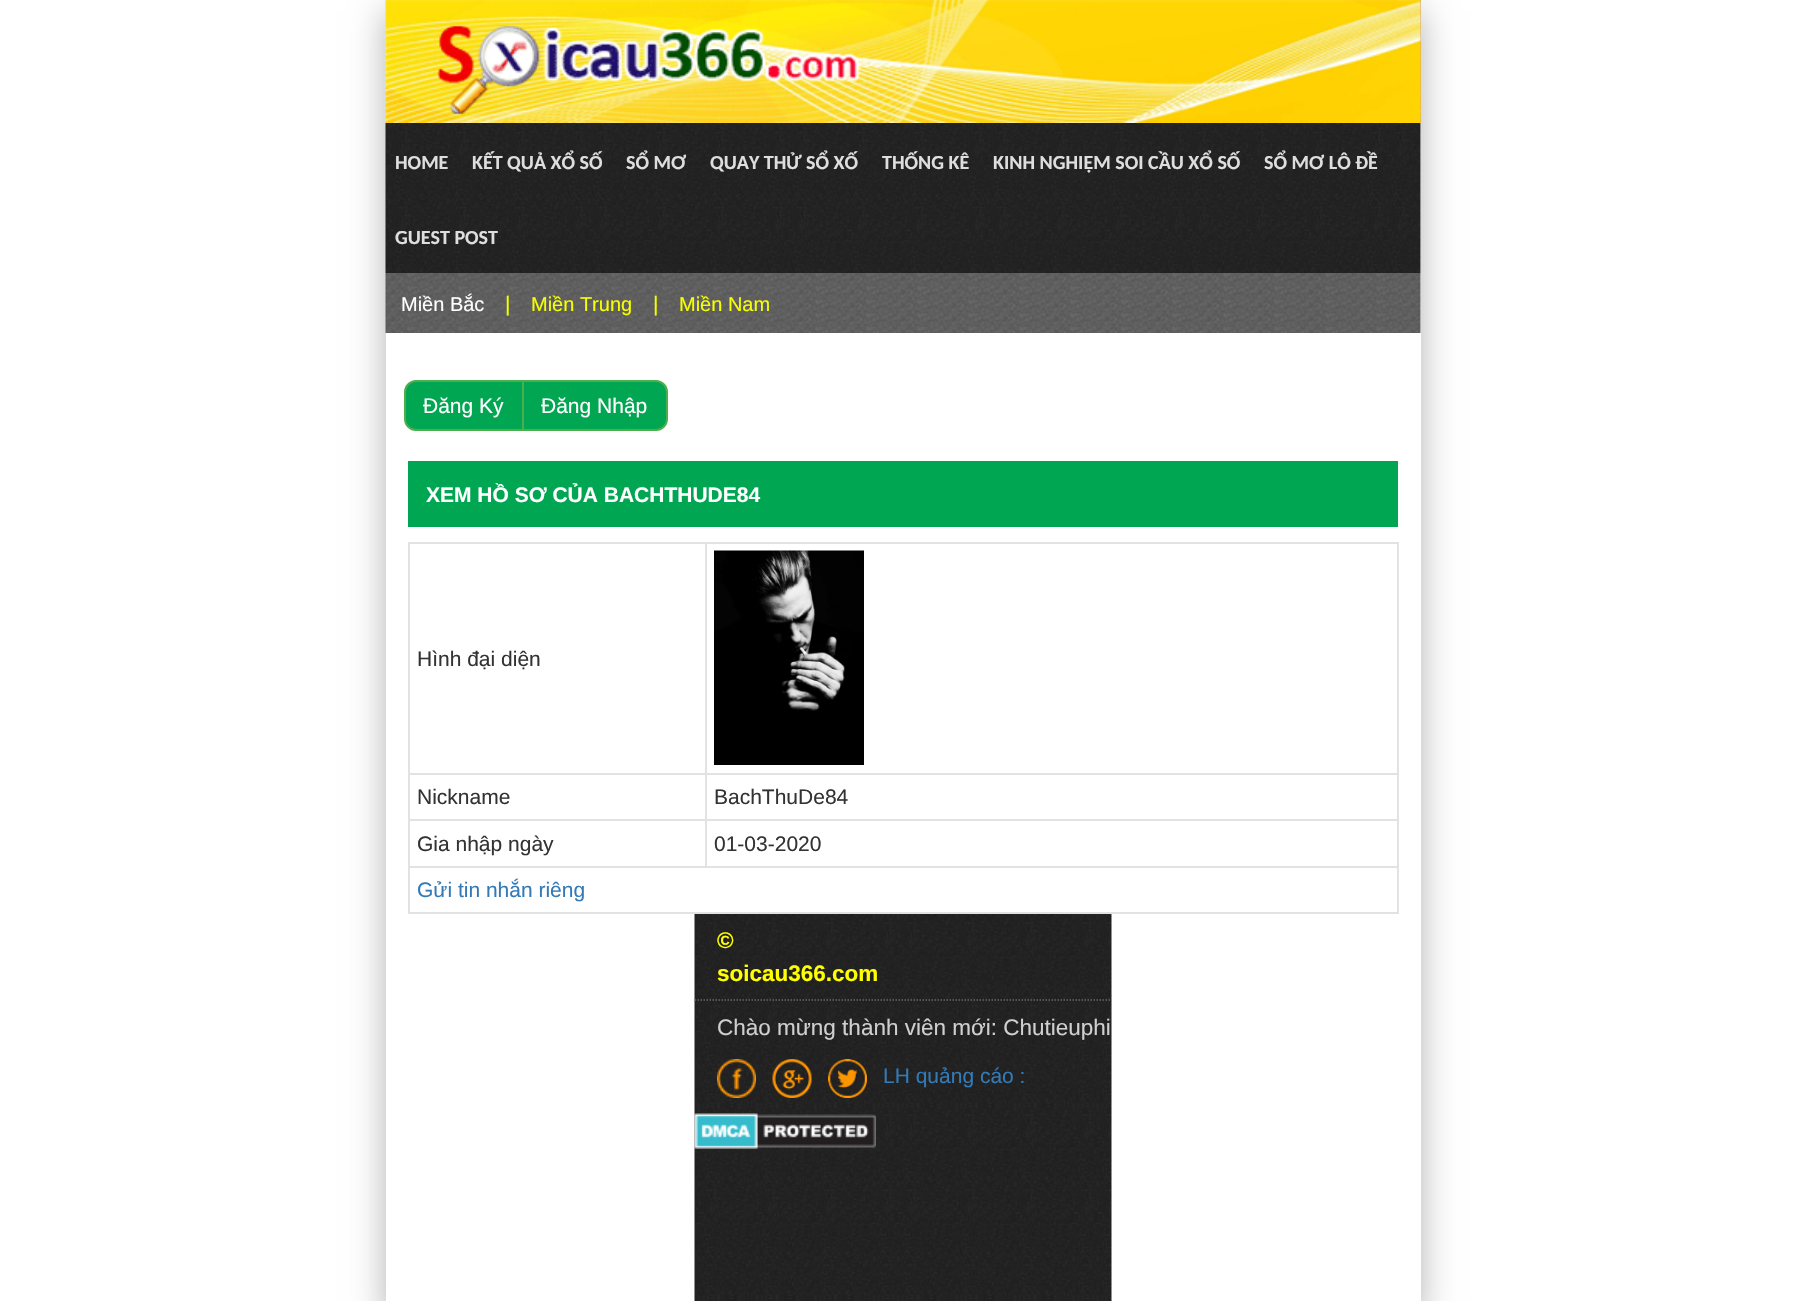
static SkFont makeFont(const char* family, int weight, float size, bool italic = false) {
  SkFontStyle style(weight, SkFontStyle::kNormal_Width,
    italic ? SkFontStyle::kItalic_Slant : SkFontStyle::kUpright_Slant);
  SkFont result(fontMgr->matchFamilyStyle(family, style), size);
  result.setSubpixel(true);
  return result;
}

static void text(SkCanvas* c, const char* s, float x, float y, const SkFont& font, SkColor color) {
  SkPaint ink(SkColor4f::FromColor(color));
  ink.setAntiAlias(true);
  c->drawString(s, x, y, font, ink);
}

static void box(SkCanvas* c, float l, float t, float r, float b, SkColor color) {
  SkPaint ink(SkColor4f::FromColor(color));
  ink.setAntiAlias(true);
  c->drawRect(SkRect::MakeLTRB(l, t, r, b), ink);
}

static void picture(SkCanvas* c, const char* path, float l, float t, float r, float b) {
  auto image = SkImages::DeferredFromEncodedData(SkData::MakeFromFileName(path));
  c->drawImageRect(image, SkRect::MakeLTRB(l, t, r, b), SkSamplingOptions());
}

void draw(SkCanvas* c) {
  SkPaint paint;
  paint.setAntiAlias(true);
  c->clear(0xffffffff);
  c->save();
  c->clipPath(SkPathBuilder(SkPathFillType::kEvenOdd).moveTo(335, 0).lineTo(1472, 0).lineTo(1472, 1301).lineTo(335, 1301).close().moveTo(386, 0).lineTo(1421, 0).lineTo(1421, 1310).lineTo(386, 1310).close().detach(), true);
  paint.setColor(0x4d000000);
  paint.setMaskFilter(SkMaskFilter::MakeBlur(kNormal_SkBlurStyle, 16.5f));
  c->drawRect(SkRect::MakeLTRB(386, 11, 1421, 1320), paint);
  paint.setMaskFilter(nullptr);
  c->restore();
  picture(c, "img_01.png", 385, 0, 1421, 123);
  picture(c, "img_02.png", 385, 0, 1421, 123);
  picture(c, "img_03.png", 385, 123, 1421, 273);
  SkFont face1 = makeFont("Carlito", 700, 20);
  text(c, "HOME", 395, 169, face1, 0xffdedede);
  text(c, "KẾT QUẢ XỔ SỐ", 472, 169, face1, 0xffdedede);
  text(c, "SỔ MƠ", 626, 169, face1, 0xffdedede);
  text(c, "QUAY THỬ SỔ XỐ", 710, 169, face1, 0xffdedede);
  text(c, "THỐNG KÊ", 882, 169, face1, 0xffdedede);
  text(c, "KINH NGHIỆM SOI CẦU XỔ SỐ", 993, 169, face1, 0xffdedede);
  text(c, "SỔ MƠ LÔ ĐỀ", 1264, 169, face1, 0xffdedede);
  text(c, "GUEST POST", 395, 244, face1, 0xffdedede);
  picture(c, "img_04.png", 385, 273, 1421, 333);
  SkFont face2 = makeFont("Liberation Sans", 400, 20);
  text(c, "Miền Bắc", 401, 311, face2, 0xffffffff);
  SkFont face3 = makeFont("Liberation Sans", 400, 21);
  text(c, "|", 505, 311, face3, 0xfff6ff00);
  text(c, "Miền Trung", 531, 311, face2, 0xfff6ff00);
  text(c, "|", 653, 311, face3, 0xfff6ff00);
  text(c, "Miền Nam", 679, 311, face2, 0xfff6ff00);
  paint.setColor(0xff00a651);
  c->drawPath(SkPathBuilder().moveTo(416, 381).lineTo(523, 381).lineTo(523, 430).lineTo(416, 430).cubicTo(410, 430, 405, 425, 405, 419).lineTo(405, 392).cubicTo(405, 386, 410, 381, 416, 381).close().detach(), paint);
  paint.setStyle(SkPaint::kStroke_Style);
  paint.setStrokeWidth(2);
  paint.setColor(0xff4cae4c);
  c->drawPath(SkPathBuilder().moveTo(416, 381).lineTo(523, 381).lineTo(523, 430).lineTo(416, 430).cubicTo(410, 430, 405, 425, 405, 419).lineTo(405, 392).cubicTo(405, 386, 410, 381, 416, 381).close().detach(), paint);
  text(c, "Đăng Ký", 423, 413, face3, 0xffffffff);
  paint.setStyle(SkPaint::kFill_Style);
  paint.setColor(0xff00a651);
  c->drawPath(SkPathBuilder().moveTo(523, 381).lineTo(656, 381).cubicTo(662, 381, 667, 386, 667, 392).lineTo(667, 419).cubicTo(667, 425, 662, 430, 656, 430).lineTo(523, 430).close().detach(), paint);
  paint.setStyle(SkPaint::kStroke_Style);
  paint.setColor(0xff4cae4c);
  c->drawPath(SkPathBuilder().moveTo(523, 381).lineTo(656, 381).cubicTo(662, 381, 667, 386, 667, 392).lineTo(667, 419).cubicTo(667, 425, 662, 430, 656, 430).lineTo(523, 430).close().detach(), paint);
  text(c, "Đăng Nhập", 541, 413, face3, 0xffffffff);
  box(c, 408, 461, 1398, 527, 0xff00a651);
  SkFont face4 = makeFont("Liberation Sans", 700, 21);
  text(c, "XEM HỒ SƠ CỦA BACHTHUDE84", 426, 502, face4, 0xffffffff);
  box(c, 408, 542, 1398, 544, 0xffe2e2e2);
  box(c, 1397, 542, 1399, 914, 0xffe2e2e2);
  box(c, 408, 912, 1398, 914, 0xffe2e2e2);
  box(c, 408, 542, 410, 914, 0xffe2e2e2);
  text(c, "Hình đại diện", 417, 666, face3, 0xff333333);
  box(c, 705, 773, 1398, 775, 0xffe2e2e2);
  box(c, 705, 819, 1398, 821, 0xffe2e2e2);
  box(c, 408, 866, 1398, 868, 0xffe2e2e2);
  box(c, 705, 819, 707, 867, 0xffe2e2e2);
  box(c, 408, 819, 707, 821, 0xffe2e2e2);
  box(c, 705, 773, 707, 821, 0xffe2e2e2);
  box(c, 408, 773, 707, 775, 0xffe2e2e2);
  box(c, 705, 542, 707, 774, 0xffe2e2e2);
  picture(c, "img_05.png", 714, 550, 864, 765);
  text(c, "Nickname", 417, 804, face3, 0xff333333);
  text(c, "BachThuDe84", 714, 804, face3, 0xff333333);
  text(c, "Gia nhập ngày", 417, 851, face3, 0xff333333);
  text(c, "01-03-2020", 714, 851, face3, 0xff333333);
  text(c, "Gửi tin nhắn riêng", 417, 897, face3, 0xff337ab7);
  picture(c, "img_06.png", 694, 914, 1112, 1301);
  paint.setStrokeWidth(1.5f);
  paint.setColor(0xff656565);
  paint.setPathEffect(SkDashPathEffect::Make({{1.5f, 1.5f}}, 0));
  c->drawPath(SkPathBuilder().moveTo(694.5f, 1000).lineTo(1111.5f, 1000).detach(), paint);
  paint.setPathEffect(nullptr);
  SkFont face5 = makeFont("Liberation Sans", 700, 22.5f);
  text(c, "©", 717, 948, face5, 0xffffff00);
  text(c, "soicau366.com", 717, 981, face5, 0xffffff00);
  SkFont face6 = makeFont("Liberation Sans", 400, 22.5f);
  text(c, "Chào mừng thành viên mới: Chutieuphi", 717, 1035, face6, 0xffcfcfcf);
  picture(c, "img_07.png", 717, 1059, 756, 1098);
  picture(c, "img_08.png", 772, 1059, 812, 1098);
  picture(c, "img_09.png", 828, 1059, 867, 1098);
  text(c, "LH quảng cáo :", 883, 1083, face3, 0xff337ab7);
  picture(c, "img_10.png", 694, 1113, 876, 1149);
}
